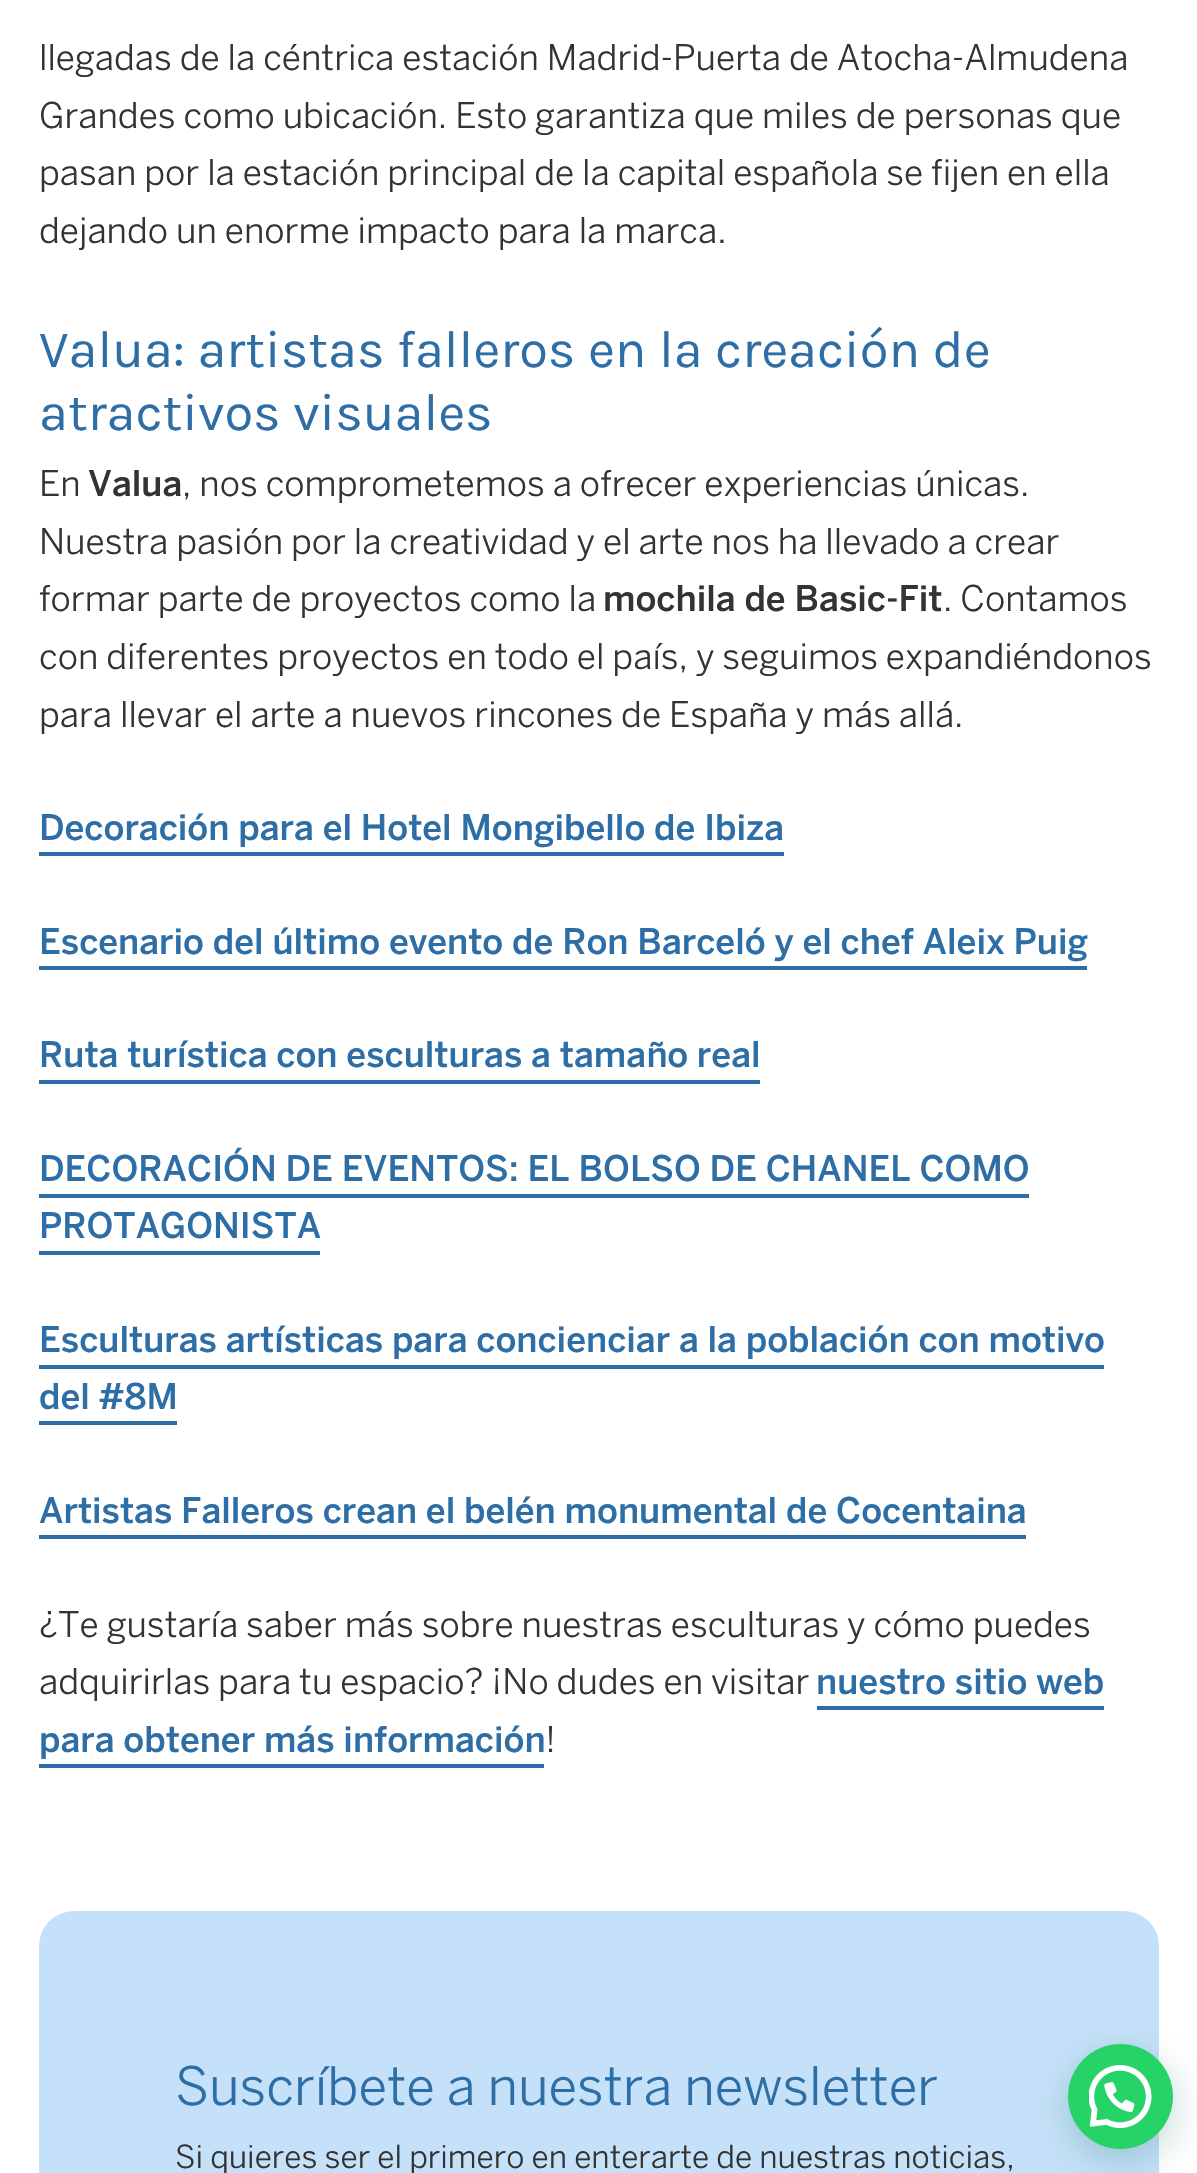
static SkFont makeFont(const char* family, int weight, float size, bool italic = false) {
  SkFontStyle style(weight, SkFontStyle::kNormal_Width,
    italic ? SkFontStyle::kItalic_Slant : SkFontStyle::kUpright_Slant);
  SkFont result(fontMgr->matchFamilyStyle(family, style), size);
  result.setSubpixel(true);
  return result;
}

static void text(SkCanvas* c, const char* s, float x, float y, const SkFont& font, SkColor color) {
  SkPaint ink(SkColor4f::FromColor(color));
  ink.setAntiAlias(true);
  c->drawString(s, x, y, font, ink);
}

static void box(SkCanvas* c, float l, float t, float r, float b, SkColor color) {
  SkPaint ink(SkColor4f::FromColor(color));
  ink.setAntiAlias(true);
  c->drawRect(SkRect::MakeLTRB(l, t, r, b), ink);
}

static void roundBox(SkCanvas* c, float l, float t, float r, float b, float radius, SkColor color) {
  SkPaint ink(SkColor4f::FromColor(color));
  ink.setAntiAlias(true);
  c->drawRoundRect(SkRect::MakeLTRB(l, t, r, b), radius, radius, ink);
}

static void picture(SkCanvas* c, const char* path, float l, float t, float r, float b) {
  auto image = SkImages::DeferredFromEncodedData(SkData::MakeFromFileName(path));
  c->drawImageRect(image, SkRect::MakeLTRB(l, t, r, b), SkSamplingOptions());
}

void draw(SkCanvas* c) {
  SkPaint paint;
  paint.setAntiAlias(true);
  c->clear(0xffffffff);
  SkFont face1 = makeFont("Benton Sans", 400, 35.1f);
  text(c, "llegadas de la céntrica estación Madrid-Puerta de Atocha-Almudena", 39, 70, face1, 0xff333333);
  text(c, "Grandes como ubicación. Esto garantiza que miles de personas que", 39, 128, face1, 0xff333333);
  text(c, "pasan por la estación principal de la capital española se fijen en ella", 39, 185, face1, 0xff333333);
  text(c, "dejando un enorme impacto para la marca.", 39, 243, face1, 0xff333333);
  SkFont face2 = makeFont("Karla", 400, 52.5f);
  text(c, "Valua: artistas falleros en la creación de", 39, 367, face2, 0xff2e6ea6);
  text(c, "atractivos visuales", 39, 430, face2, 0xff2e6ea6);
  text(c, "En", 39, 496, face1, 0xff333333);
  SkFont face3 = makeFont("Benton Sans", 500, 35.1f);
  text(c, "Valua", 88, 496, face3, 0xff333333);
  text(c, ", nos comprometemos a ofrecer experiencias únicas.", 182, 496, face1, 0xff333333);
  text(c, "Nuestra pasión por la creatividad y el arte nos ha llevado a crear", 39, 554, face1, 0xff333333);
  text(c, "formar parte de proyectos como la", 39, 611, face1, 0xff333333);
  text(c, "mochila de Basic-Fit", 603, 611, face3, 0xff333333);
  text(c, ". Contamos", 943, 611, face1, 0xff333333);
  text(c, "con diferentes proyectos en todo el país, y seguimos expandiéndonos", 39, 669, face1, 0xff333333);
  text(c, "para llevar el arte a nuevos rincones de España y más allá.", 39, 727, face1, 0xff333333);
  text(c, "Decoración para el Hotel Mongibello de Ibiza", 39, 840, face3, 0xff2e6ea6);
  box(c, 39, 852, 784, 856, 0xff2e6ea6);
  text(c, "Escenario del último evento de Ron Barceló y el chef Aleix Puig", 39, 954, face3, 0xff2e6ea6);
  box(c, 39, 966, 1087, 970, 0xff2e6ea6);
  text(c, "Ruta turística con esculturas a tamaño real", 39, 1067, face3, 0xff2e6ea6);
  box(c, 39, 1080, 760, 1084, 0xff2e6ea6);
  text(c, "DECORACIÓN DE EVENTOS: EL BOLSO DE CHANEL COMO", 39, 1181, face3, 0xff2e6ea6);
  text(c, "PROTAGONISTA", 39, 1238, face3, 0xff2e6ea6);
  box(c, 39, 1194, 1029, 1198, 0xff2e6ea6);
  box(c, 39, 1251, 320, 1255, 0xff2e6ea6);
  text(c, "Esculturas artísticas para concienciar a la población con motivo", 39, 1352, face3, 0xff2e6ea6);
  box(c, 39, 1365, 1104, 1369, 0xff2e6ea6);
  text(c, "del #8M", 39, 1409, face3, 0xff2e6ea6);
  box(c, 39, 1421, 177, 1425, 0xff2e6ea6);
  text(c, "Artistas Falleros crean el belén monumental de Cocentaina", 39, 1523, face3, 0xff2e6ea6);
  box(c, 39, 1535, 1026, 1539, 0xff2e6ea6);
  text(c, "¿Te gustaría saber más sobre nuestras esculturas y cómo puedes", 39, 1637, face1, 0xff333333);
  text(c, "adquirirlas para tu espacio? ¡No dudes en visitar", 39, 1694, face1, 0xff333333);
  text(c, "nuestro sitio web", 816, 1694, face3, 0xff2e6ea6);
  box(c, 817, 1706, 1104, 1710, 0xff2e6ea6);
  text(c, "para obtener más información", 39, 1752, face3, 0xff2e6ea6);
  box(c, 39, 1764, 544, 1768, 0xff2e6ea6);
  text(c, "!", 545, 1752, face1, 0xff333333);
  roundBox(c, 39, 1911, 1159, 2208, 35, 0xffc5e1f9);
  SkFont face4 = makeFont("Benton Sans", 400, 52.5f);
  text(c, "Suscríbete a nuestra newsletter", 175, 2105, face4, 0xff2e6ea6);
  SkFont face5 = makeFont("Benton Sans", 400, 31.5f);
  text(c, "Si quieres ser el primero en enterarte de nuestras noticias,", 175, 2168, face5, 0xff333333);
  paint.setColor(0x3d075e54);
  paint.setMaskFilter(SkMaskFilter::MakeBlur(kNormal_SkBlurStyle, 21));
  c->drawRoundRect(SkRect::MakeLTRB(1069, 2055, 1174, 2160), 52.5f, 52.5f, paint);
  paint.setMaskFilter(nullptr);
  paint.setColor(0xff25d366);
  c->drawCircle(1120.5f, 2096.5f, 52.5f, paint);
  picture(c, "img_01.png", 1089, 2065, 1152, 2128);
}
